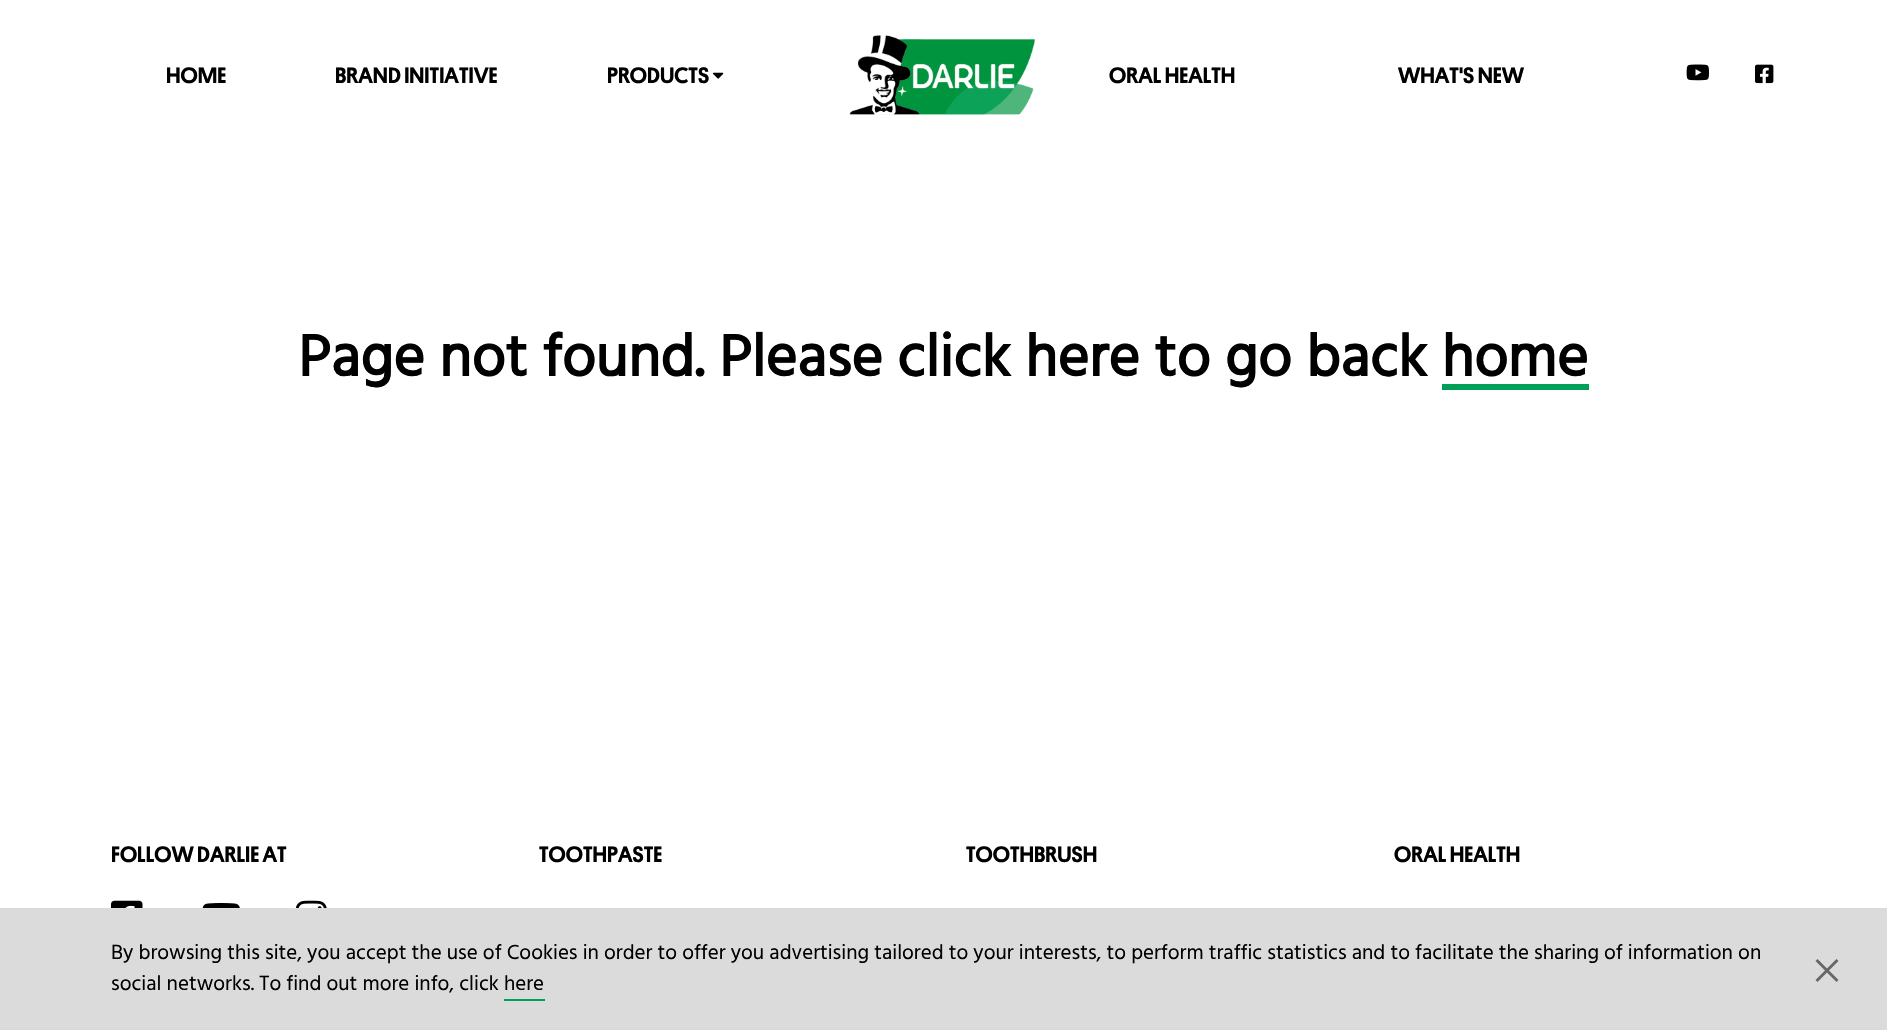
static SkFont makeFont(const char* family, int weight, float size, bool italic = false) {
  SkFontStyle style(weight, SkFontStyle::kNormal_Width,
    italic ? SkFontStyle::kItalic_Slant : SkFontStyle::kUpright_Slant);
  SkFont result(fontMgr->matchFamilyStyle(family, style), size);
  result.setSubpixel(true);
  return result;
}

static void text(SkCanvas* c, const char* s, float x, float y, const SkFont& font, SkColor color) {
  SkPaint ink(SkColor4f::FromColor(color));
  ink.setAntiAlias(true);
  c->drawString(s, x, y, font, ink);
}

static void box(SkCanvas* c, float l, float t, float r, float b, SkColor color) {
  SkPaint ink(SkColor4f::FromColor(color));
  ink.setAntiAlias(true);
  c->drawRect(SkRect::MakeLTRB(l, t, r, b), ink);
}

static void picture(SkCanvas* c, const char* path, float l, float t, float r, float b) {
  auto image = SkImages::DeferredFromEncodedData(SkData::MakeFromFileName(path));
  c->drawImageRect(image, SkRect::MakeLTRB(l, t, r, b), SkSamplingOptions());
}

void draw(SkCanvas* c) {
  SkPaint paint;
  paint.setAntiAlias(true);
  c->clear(0xffffffff);
  SkFont face1 = makeFont("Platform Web", 500, 22.5f);
  text(c, "HOME", 166, 83, face1, 0xff000000);
  text(c, "BRAND INITIATIVE", 335, 83, face1, 0xff000000);
  text(c, "PRODUCTS", 607, 83, face1, 0xff000000);
  picture(c, "img_01.png", 712, 72, 724, 79);
  picture(c, "img_02.png", 849, 35, 1036, 115);
  text(c, "ORAL HEALTH", 1109, 83, face1, 0xff000000);
  text(c, "WHAT'S NEW", 1398, 83, face1, 0xff000000);
  picture(c, "img_03.png", 1686, 64, 1709, 81);
  picture(c, "img_04.png", 1755, 64, 1774, 84);
  SkFont face2 = makeFont("Hind", 700, 60);
  text(c, "Page not found. Please click here to go back home", 298, 376, face2, 0xff000000);
  box(c, 1442, 384, 1589, 390, 0xff00a058);
  text(c, "FOLLOW DARLIE AT", 111, 862, face1, 0xff000000);
  picture(c, "img_05.png", 111, 900, 143, 908);
  picture(c, "img_06.png", 202, 903, 240, 908);
  picture(c, "img_07.png", 295, 900, 327, 908);
  text(c, "TOOTHPASTE", 539, 862, face1, 0xff000000);
  text(c, "TOOTHBRUSH", 966, 862, face1, 0xff000000);
  text(c, "ORAL HEALTH", 1394, 862, face1, 0xff000000);
  box(c, 0, 908, 1887, 1030, 0xffdbdbdb);
  SkFont face3 = makeFont("Hind", 400, 21);
  text(c, "By browsing this site, you accept the use of Cookies in order to offer you advertising tailored to your interests, to perform traffic statistics and to facilitate the sharing of information on", 111, 959, face3, 0xff000000);
  text(c, "social networks. To find out more info, click here", 111, 990, face3, 0xff000000);
  box(c, 504, 999, 545, 1001, 0xff00a058);
  paint.setColor(0xff666666);
  c->drawPath(SkPathBuilder().moveTo(1815.5f, 980).lineTo(1836.5f, 959).lineTo(1838.5f, 961).lineTo(1817.5f, 982).close().detach(), paint);
  c->drawPath(SkPathBuilder().moveTo(1817.5f, 959).lineTo(1838.5f, 980).lineTo(1836.5f, 982).lineTo(1815.5f, 961).close().detach(), paint);
}
